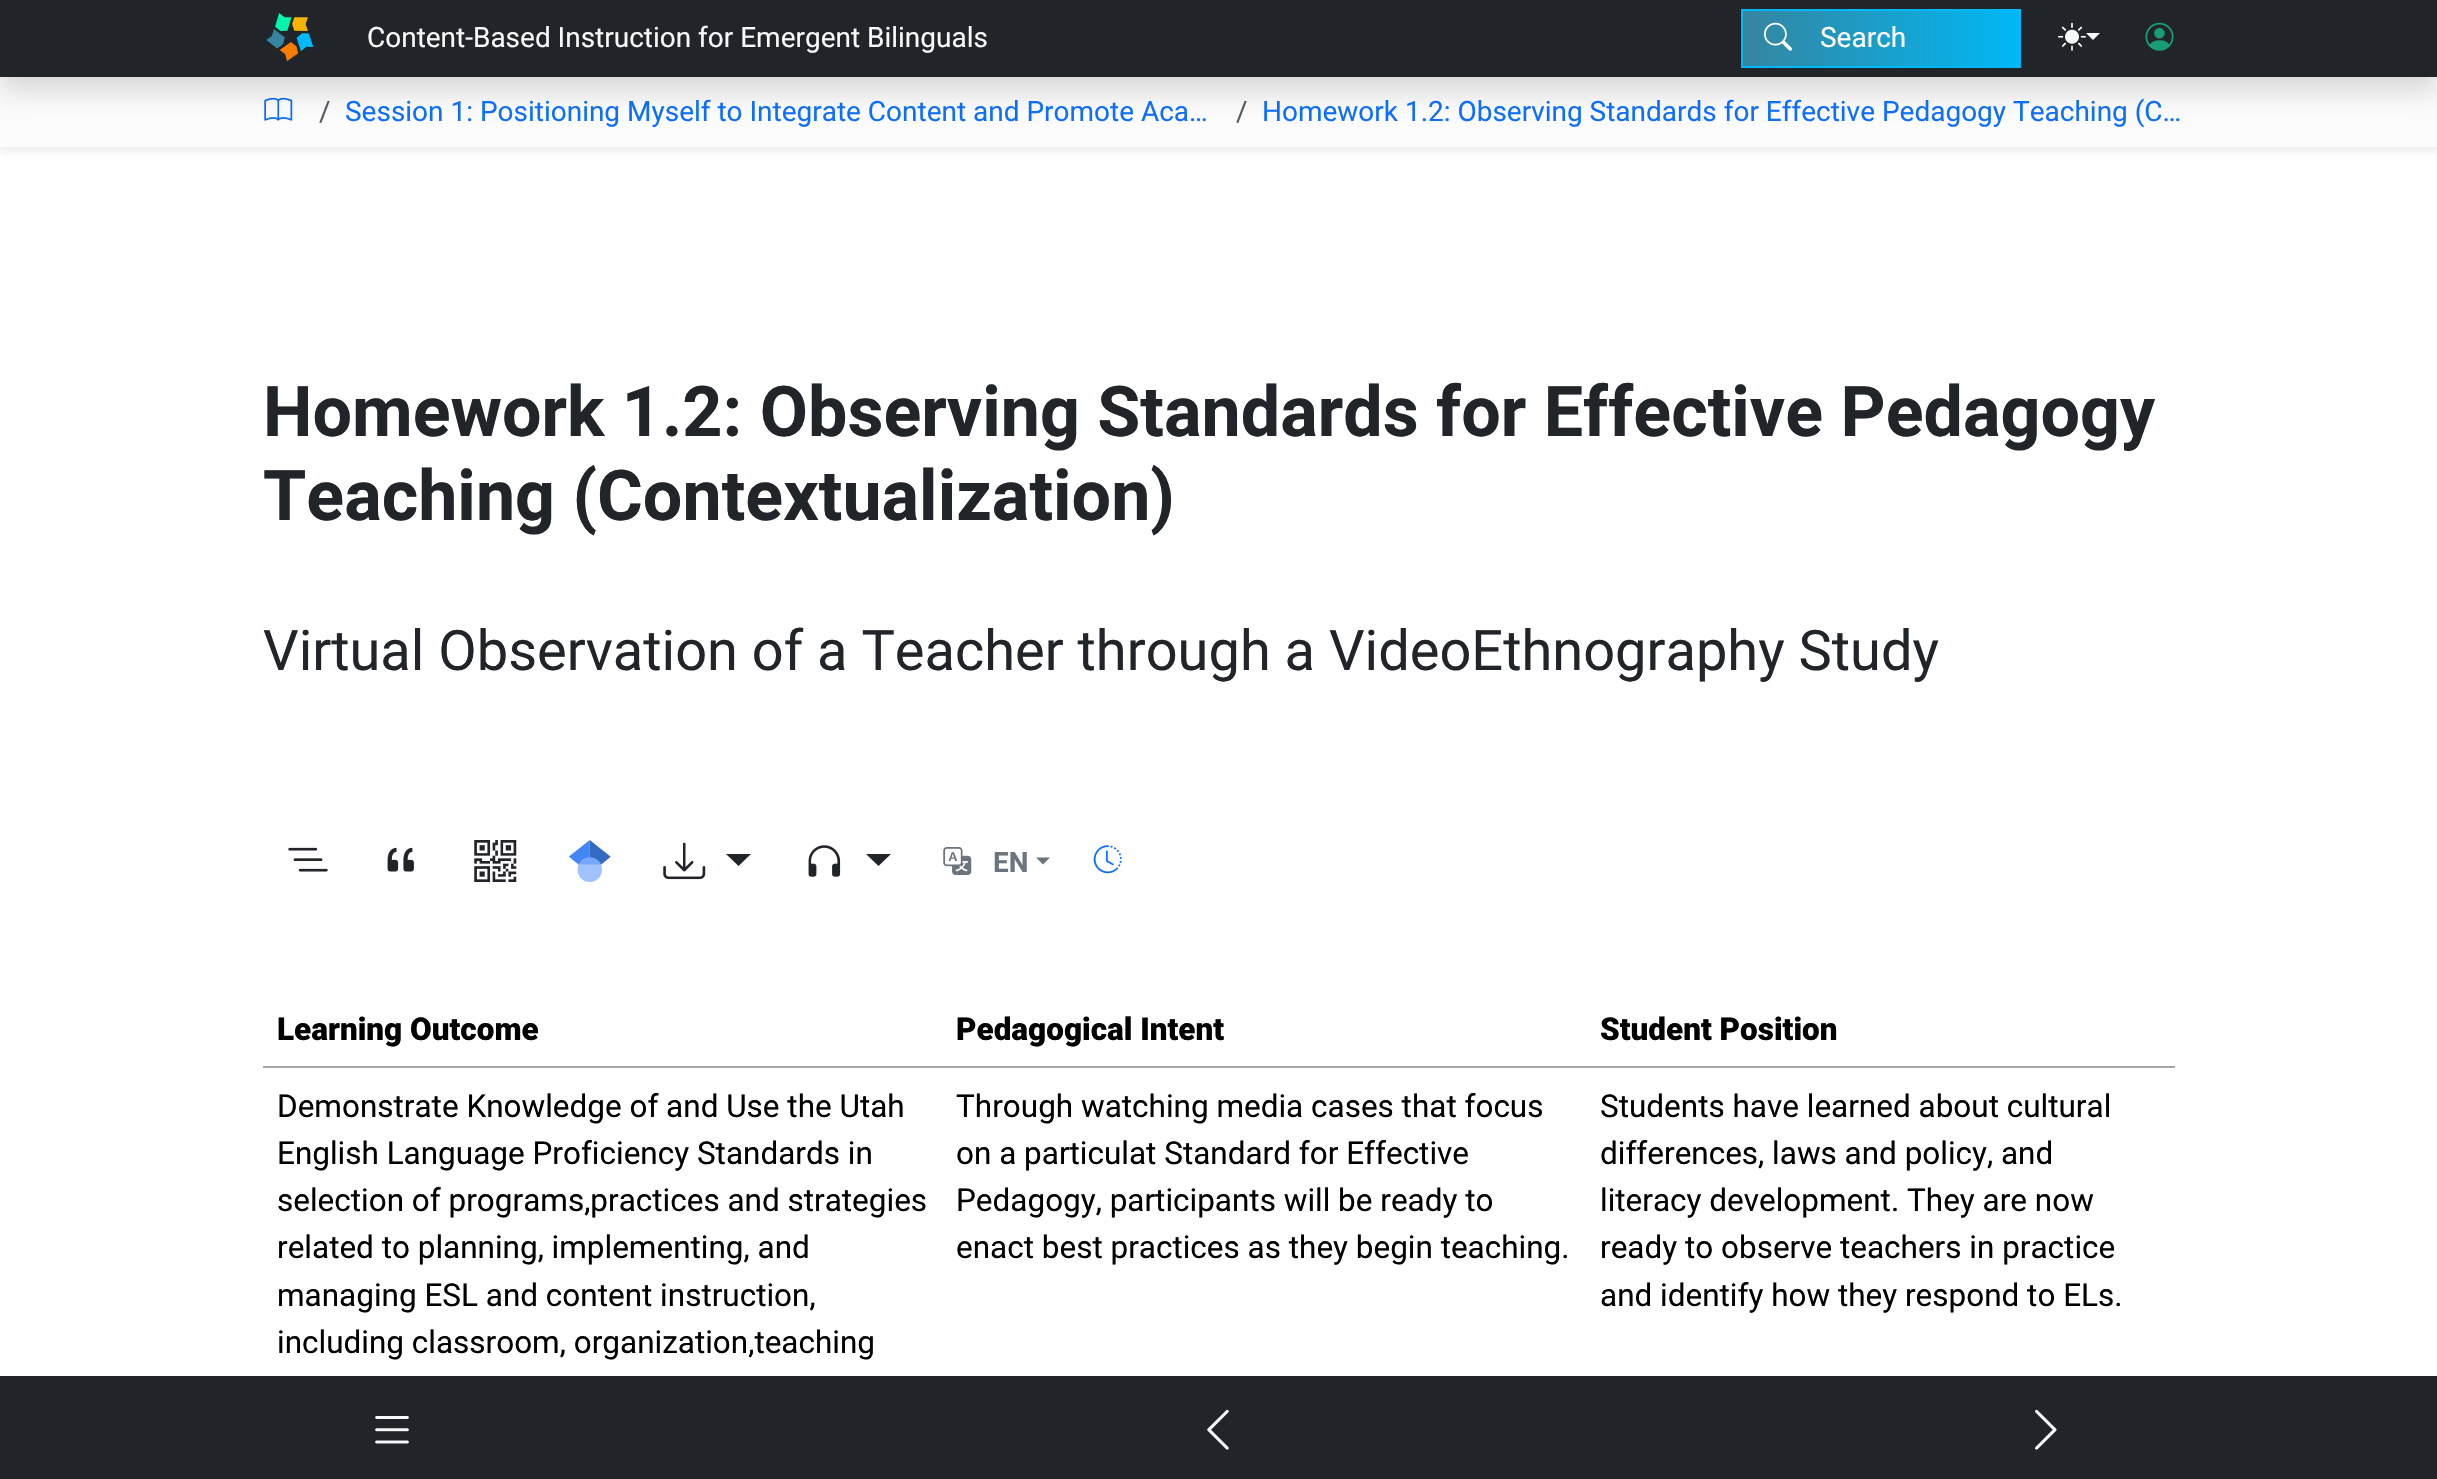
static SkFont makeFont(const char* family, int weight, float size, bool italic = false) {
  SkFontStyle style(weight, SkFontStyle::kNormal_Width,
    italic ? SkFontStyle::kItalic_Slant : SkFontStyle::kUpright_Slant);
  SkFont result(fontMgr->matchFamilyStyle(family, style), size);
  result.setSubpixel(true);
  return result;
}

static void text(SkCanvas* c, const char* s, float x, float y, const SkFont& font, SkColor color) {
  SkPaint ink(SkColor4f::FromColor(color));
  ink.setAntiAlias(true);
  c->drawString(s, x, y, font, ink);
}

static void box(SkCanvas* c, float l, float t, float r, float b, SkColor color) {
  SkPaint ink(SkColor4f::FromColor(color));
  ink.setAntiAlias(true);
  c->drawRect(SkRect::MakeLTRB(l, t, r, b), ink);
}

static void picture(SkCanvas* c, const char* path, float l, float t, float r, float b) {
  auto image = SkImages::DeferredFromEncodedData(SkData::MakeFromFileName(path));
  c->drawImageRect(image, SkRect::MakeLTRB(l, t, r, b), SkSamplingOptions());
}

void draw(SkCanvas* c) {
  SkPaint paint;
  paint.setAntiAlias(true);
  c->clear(0xffffffff);
  paint.setColor(0x12000000);
  paint.setMaskFilter(SkMaskFilter::MakeBlur(kNormal_SkBlurStyle, 3.5f));
  c->drawRect(SkRect::MakeLTRB(0, 81, 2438, 151), paint);
  paint.setMaskFilter(nullptr);
  box(c, 0, 79, 2437, 147, 0xfffcfcfd);
  picture(c, "img_05.png", 264, 97, 293, 121);
  paint.setColor(0x26000000);
  paint.setMaskFilter(SkMaskFilter::MakeBlur(kNormal_SkBlurStyle, 14));
  c->drawRect(SkRect::MakeLTRB(0, 14, 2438, 91), paint);
  paint.setMaskFilter(nullptr);
  box(c, 0, 0, 2437, 77, 0xff212529);
  picture(c, "img_01.png", 266, 13, 313, 61);
  SkFont face1 = makeFont("Roboto", 400, 28);
  text(c, "Content-Based Instruction for Emergent Bilinguals", 367, 47, face1, 0xfff8f9fa);
  {
    const SkColor colors[] = {0xff3585a0, 0xff00b8f5};
    const float stops[] = {0, 1};
    const SkPoint ends[] = {{1743, 39}, {2020, 38}};
    paint.setShader(SkGradientShader::MakeLinear(ends, colors, stops, 2, SkTileMode::kClamp));
    paint.setAlpha(255);
  }
  c->drawRect(SkRect::MakeLTRB(1743, 11, 2019, 66), paint);
  paint.setStyle(SkPaint::kStroke_Style);
  paint.setStrokeWidth(2);
  paint.setShader(nullptr);
  paint.setColor(0xff00b8f5);
  c->drawRect(SkRect::MakeLTRB(1742, 10, 2020, 67), paint);
  picture(c, "img_02.png", 1764, 22, 1792, 51);
  text(c, "Search", 1820, 47, face1, 0xffffffff);
  picture(c, "img_03.png", 2058, 22, 2086, 51);
  paint.setStyle(SkPaint::kFill_Style);
  paint.setColor(0xfff8f9fa);
  c->drawPath(SkPathBuilder().moveTo(2086, 33).lineTo(2100, 33).lineTo(2093, 40).close().detach(), paint);
  picture(c, "img_04.png", 2145, 22, 2174, 51);
  text(c, "/", 319, 121, face1, 0xff585b5e);
  text(c, "Session 1: Positioning Myself to Integrate Content and Promote Aca…", 345, 121, face1, 0xff0d6efd);
  text(c, "/", 1236, 121, face1, 0xff585b5e);
  text(c, "Homework 1.2: Observing Standards for Effective Pedagogy Teaching (C…", 1262, 121, face1, 0xff0d6efd);
  SkFont face2 = makeFont("Roboto", 700, 70);
  text(c, "Homework 1.2: Observing Standards for Effective Pedagogy", 263, 436, face2, 0xff212529);
  text(c, "Teaching (Contextualization)", 263, 520, face2, 0xff212529);
  SkFont face3 = makeFont("Roboto", 400, 56);
  text(c, "Virtual Observation of a Teacher through a VideoEthnography Study", 263, 670, face3, 0xff212529);
  picture(c, "img_06.png", 288, 847, 328, 872);
  picture(c, "img_07.png", 387, 847, 414, 872);
  picture(c, "img_08.png", 474, 840, 517, 882);
  picture(c, "img_09.png", 569, 840, 611, 882);
  picture(c, "img_10.png", 663, 842, 706, 880);
  paint.setColor(0xff212529);
  c->drawPath(SkPathBuilder().moveTo(726, 854).lineTo(751, 854).lineTo(738.5f, 866).close().detach(), paint);
  picture(c, "img_11.png", 808, 845, 841, 877);
  c->drawPath(SkPathBuilder().moveTo(866, 854).lineTo(891, 854).lineTo(878.5f, 866).close().detach(), paint);
  picture(c, "img_12.png", 943, 847, 972, 875);
  SkFont face4 = makeFont("Roboto", 700, 28);
  text(c, "EN", 993, 872, face4, 0xff6c757d);
  paint.setColor(0xff6c757d);
  c->drawPath(SkPathBuilder().moveTo(1036, 857.5f).lineTo(1050, 857.5f).lineTo(1043, 864.5f).close().detach(), paint);
  picture(c, "img_13.png", 1093, 845, 1122, 874);
  SkFont face5 = makeFont("Roboto", 900, 31.5f);
  text(c, "Learning Outcome", 277, 1040, face5, 0xff000000);
  text(c, "Pedagogical Intent", 956, 1040, face5, 0xff000000);
  box(c, 263, 1066, 2175, 1068, 0xffa2a6aa);
  text(c, "Student Position", 1600, 1040, face5, 0xff000000);
  SkFont face6 = makeFont("Roboto", 400, 31.5f);
  text(c, "Demonstrate Knowledge of and Use the Utah", 277, 1117, face6, 0xff000000);
  text(c, "English Language Proficiency Standards in", 277, 1164, face6, 0xff000000);
  text(c, "selection of programs,practices and strategies", 277, 1211, face6, 0xff000000);
  text(c, "related to planning, implementing, and", 277, 1258, face6, 0xff000000);
  text(c, "managing ESL and content instruction,", 277, 1306, face6, 0xff000000);
  text(c, "including classroom, organization,teaching", 277, 1353, face6, 0xff000000);
  text(c, "Through watching media cases that focus", 956, 1117, face6, 0xff000000);
  text(c, "on a particulat Standard for Effective", 956, 1164, face6, 0xff000000);
  text(c, "Pedagogy, participants will be ready to", 956, 1211, face6, 0xff000000);
  text(c, "enact best practices as they begin teaching.", 956, 1258, face6, 0xff000000);
  text(c, "Students have learned about cultural", 1600, 1117, face6, 0xff000000);
  text(c, "differences, laws and policy, and", 1600, 1164, face6, 0xff000000);
  text(c, "literacy development. They are now", 1600, 1211, face6, 0xff000000);
  text(c, "ready to observe teachers in practice", 1600, 1258, face6, 0xff000000);
  text(c, "and identify how they respond to ELs.", 1600, 1306, face6, 0xff000000);
  box(c, 0, 1376, 2437, 1479, 0xff212529);
  picture(c, "img_14.png", 375, 1416, 409, 1444);
  picture(c, "img_15.png", 1207, 1409, 1229, 1450);
  picture(c, "img_16.png", 2035, 1409, 2057, 1450);
}
